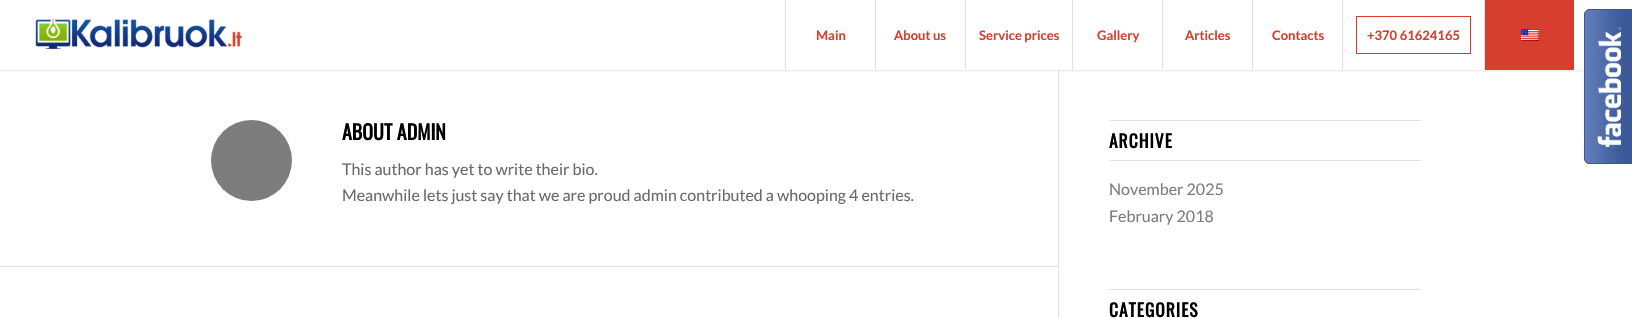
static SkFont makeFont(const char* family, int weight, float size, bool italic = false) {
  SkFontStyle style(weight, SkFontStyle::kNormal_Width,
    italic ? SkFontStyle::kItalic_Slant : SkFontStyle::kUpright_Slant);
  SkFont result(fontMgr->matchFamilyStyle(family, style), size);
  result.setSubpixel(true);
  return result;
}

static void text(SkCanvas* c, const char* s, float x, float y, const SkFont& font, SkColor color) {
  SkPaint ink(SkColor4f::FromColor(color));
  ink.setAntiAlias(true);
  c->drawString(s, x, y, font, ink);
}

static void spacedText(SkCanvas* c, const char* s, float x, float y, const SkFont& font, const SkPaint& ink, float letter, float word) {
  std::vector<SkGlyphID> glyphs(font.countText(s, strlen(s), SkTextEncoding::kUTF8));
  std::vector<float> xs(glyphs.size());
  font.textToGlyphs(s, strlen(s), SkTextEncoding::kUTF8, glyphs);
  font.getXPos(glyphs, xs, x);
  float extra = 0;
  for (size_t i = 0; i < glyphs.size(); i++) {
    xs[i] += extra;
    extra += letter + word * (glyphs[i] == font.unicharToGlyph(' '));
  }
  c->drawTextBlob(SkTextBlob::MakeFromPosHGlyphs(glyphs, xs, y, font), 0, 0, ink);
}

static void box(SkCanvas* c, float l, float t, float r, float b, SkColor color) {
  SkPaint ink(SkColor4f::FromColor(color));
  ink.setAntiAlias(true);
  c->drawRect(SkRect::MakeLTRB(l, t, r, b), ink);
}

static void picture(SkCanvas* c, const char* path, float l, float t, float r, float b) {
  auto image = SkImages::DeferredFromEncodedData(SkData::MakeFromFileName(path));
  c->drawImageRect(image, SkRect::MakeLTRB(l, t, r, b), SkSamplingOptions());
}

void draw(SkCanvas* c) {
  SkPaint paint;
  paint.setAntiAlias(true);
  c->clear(0xffffffff);
  box(c, 1058, 70, 1059, 318, 0xffe1e1e1);
  c->save();
  c->clipRect(SkRect::MakeLTRB(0, 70, 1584, 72));
  paint.setColor(0x1a000000);
  paint.setMaskFilter(SkMaskFilter::MakeBlur(kNormal_SkBlurStyle, 1));
  c->drawRect(SkRect::MakeLTRB(-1, -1, 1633, 71), paint);
  paint.setMaskFilter(nullptr);
  c->restore();
  picture(c, "img_01.png", 35, 18, 242, 49);
  box(c, 785, 0, 786, 70, 0xffe1e1e1);
  SkFont face1 = makeFont("Lato", 700, 13);
  text(c, "Main", 816, 40, face1, 0xffd63e2d);
  box(c, 875, 0, 876, 70, 0xffe1e1e1);
  text(c, "About us", 894, 40, face1, 0xffd63e2d);
  box(c, 965, 0, 966, 70, 0xffe1e1e1);
  text(c, "Service prices", 979, 40, face1, 0xffd63e2d);
  box(c, 1072, 0, 1073, 70, 0xffe1e1e1);
  text(c, "Gallery", 1097, 40, face1, 0xffd63e2d);
  box(c, 1162, 0, 1163, 70, 0xffe1e1e1);
  text(c, "Articles", 1185, 40, face1, 0xffd63e2d);
  box(c, 1252, 0, 1253, 70, 0xffe1e1e1);
  text(c, "Contacts", 1272, 40, face1, 0xffd63e2d);
  box(c, 1342, 0, 1343, 70, 0xffe1e1e1);
  paint.setStyle(SkPaint::kStroke_Style);
  paint.setStrokeWidth(1);
  paint.setColor(0xffd63e2d);
  c->drawRect(SkRect::MakeLTRB(1356.5f, 16.5f, 1470.5f, 53.5f), paint);
  text(c, "+370 61624165", 1367, 40, face1, 0xffd63e2d);
  box(c, 1485, 0, 1574, 70, 0xffd63e2d);
  box(c, 1484, 0, 1485, 70, 0xffe1e1e1);
  picture(c, "img_02.png", 1521, 29, 1539, 41);
  paint.setStyle(SkPaint::kFill_Style);
  paint.setColor(0xff7d7d7d);
  c->drawCircle(251.5f, 160.5f, 40.5f, paint);
  SkFont face2 = makeFont("Oswald", 700, 20);
  text(c, "ABOUT ADMIN", 342, 140, face2, 0xff000000);
  SkFont face3 = makeFont("Lato", 400, 16);
  text(c, "This author has yet to write their bio.", 342, 175, face3, 0xff696969);
  text(c, "Meanwhile lets just say that we are proud admin contributed a whooping 4 entries.", 342, 201, face3, 0xff696969);
  box(c, 0, 266, 1058, 267, 0xffe1e1e1);
  box(c, 1109, 120, 1421, 121, 0xffe1e1e1);
  box(c, 1109, 160, 1421, 161, 0xffe1e1e1);
  SkFont face4 = makeFont("Oswald", 700, 17.5f);
  paint.setColor(0xff000000);
  spacedText(c, "ARCHIVE", 1109, 148, face4, paint, 1, 0);
  text(c, "November 2025", 1109, 195, face3, 0xff7d7d7d);
  text(c, "February 2018", 1109, 222, face3, 0xff7d7d7d);
  box(c, 1109, 289, 1421, 290, 0xffe1e1e1);
  spacedText(c, "CATEGORIES", 1109, 317, face4, paint, 1, 0);
  picture(c, "img_03.png", 1584, 9, 1632, 164);
}
